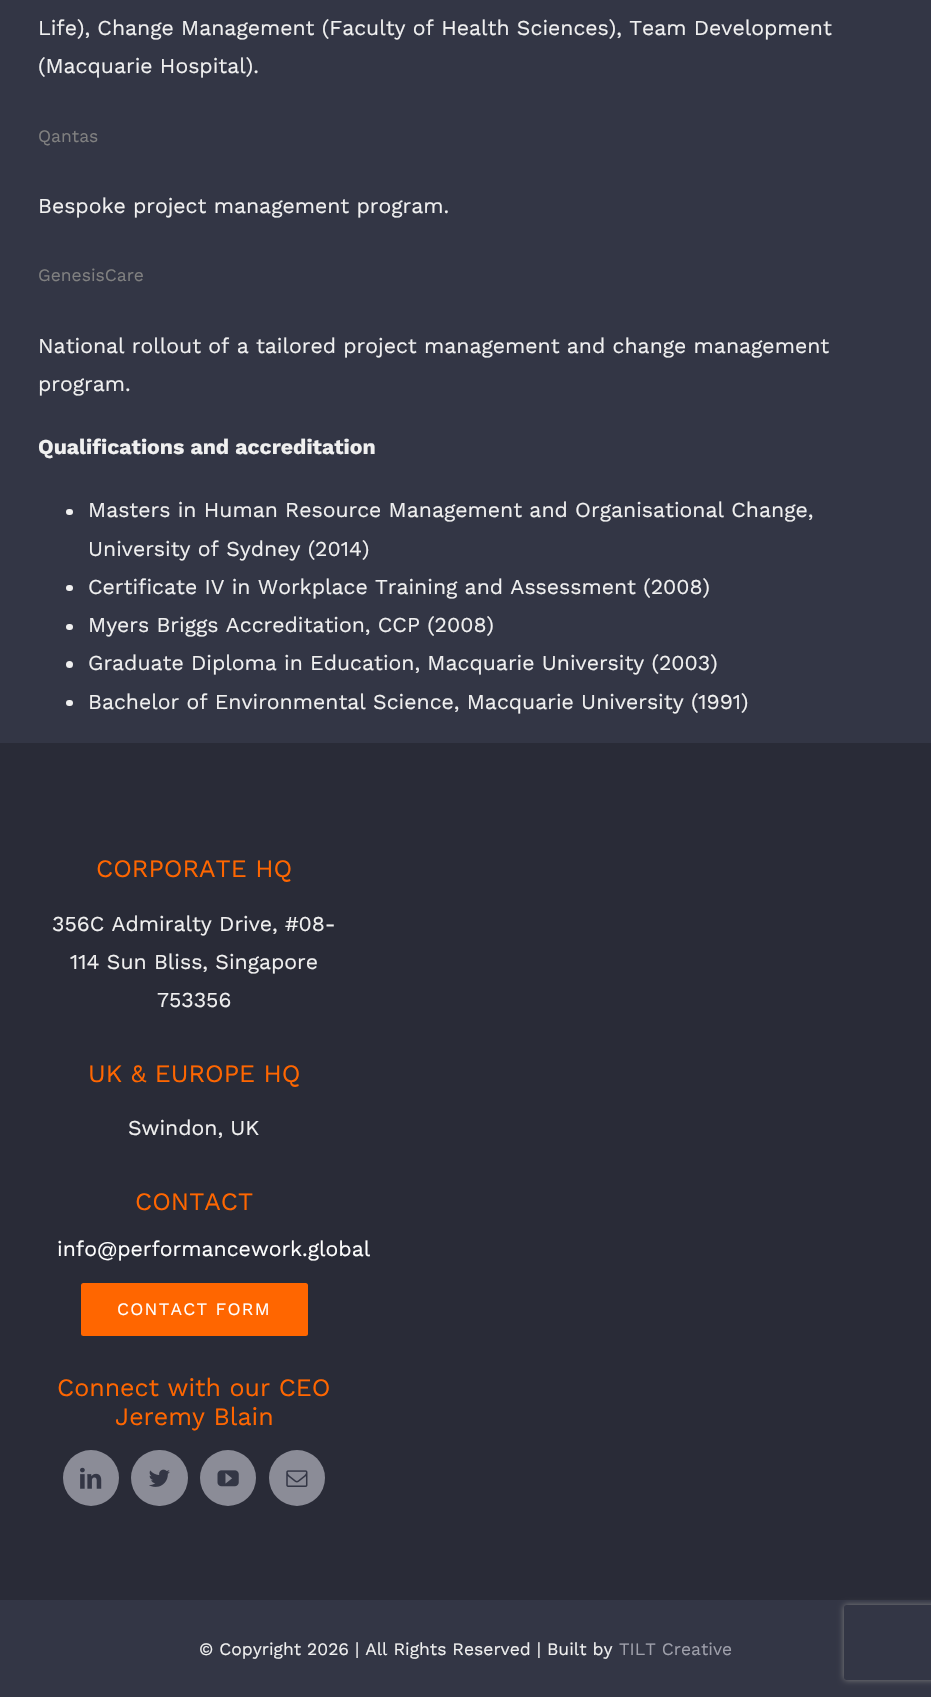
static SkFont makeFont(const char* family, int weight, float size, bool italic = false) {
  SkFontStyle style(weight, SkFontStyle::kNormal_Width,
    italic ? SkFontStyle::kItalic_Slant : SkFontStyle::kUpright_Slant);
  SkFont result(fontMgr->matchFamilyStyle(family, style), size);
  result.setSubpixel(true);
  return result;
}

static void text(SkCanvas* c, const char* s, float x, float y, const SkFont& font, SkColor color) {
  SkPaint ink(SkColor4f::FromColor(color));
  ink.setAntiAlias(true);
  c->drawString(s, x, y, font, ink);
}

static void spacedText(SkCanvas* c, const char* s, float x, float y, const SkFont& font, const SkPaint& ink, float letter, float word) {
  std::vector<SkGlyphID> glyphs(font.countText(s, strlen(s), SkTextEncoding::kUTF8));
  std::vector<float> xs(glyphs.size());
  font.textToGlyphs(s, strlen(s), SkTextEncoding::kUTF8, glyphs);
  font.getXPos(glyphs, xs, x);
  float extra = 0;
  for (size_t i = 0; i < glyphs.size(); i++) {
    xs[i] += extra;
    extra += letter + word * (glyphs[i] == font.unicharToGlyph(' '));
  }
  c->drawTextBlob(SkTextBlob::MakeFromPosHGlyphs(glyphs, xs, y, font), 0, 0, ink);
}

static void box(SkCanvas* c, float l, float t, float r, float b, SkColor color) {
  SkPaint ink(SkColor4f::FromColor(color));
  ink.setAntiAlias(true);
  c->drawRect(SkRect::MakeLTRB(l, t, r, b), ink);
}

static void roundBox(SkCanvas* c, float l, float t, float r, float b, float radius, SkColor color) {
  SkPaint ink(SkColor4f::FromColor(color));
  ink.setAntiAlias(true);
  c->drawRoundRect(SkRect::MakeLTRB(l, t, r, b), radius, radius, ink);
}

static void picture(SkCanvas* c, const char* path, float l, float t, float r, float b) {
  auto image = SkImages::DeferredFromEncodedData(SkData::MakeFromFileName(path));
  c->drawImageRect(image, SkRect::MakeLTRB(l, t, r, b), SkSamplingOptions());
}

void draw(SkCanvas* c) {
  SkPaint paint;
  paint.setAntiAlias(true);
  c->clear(0xff333645);
  SkFont face1 = makeFont("Work Sans", 400, 21.25f);
  text(c, "Life), Change Management (Faculty of Health Sciences), Team Development", 38, 35, face1, 0xfff0f0f0);
  text(c, "(Macquarie Hospital).", 38, 73, face1, 0xfff0f0f0);
  SkFont face2 = makeFont("Work Sans", 400, 17.5f);
  text(c, "Qantas", 38, 142, face2, 0xff808080);
  text(c, "Bespoke project management program.", 38, 213, face1, 0xfff0f0f0);
  text(c, "GenesisCare", 38, 281, face2, 0xff808080);
  text(c, "National rollout of a tailored project management and change management", 38, 353, face1, 0xfff0f0f0);
  text(c, "program.", 38, 391, face1, 0xfff0f0f0);
  SkFont face3 = makeFont("Work Sans", 700, 21.25f);
  text(c, "Qualifications and accreditation", 38, 454, face3, 0xfff0f0f0);
  roundBox(c, 66, 509, 73, 515, 3, 0xfff0f0f0);
  text(c, "Masters in Human Resource Management and Organisational Change,", 88, 517, face1, 0xfff0f0f0);
  text(c, "University of Sydney (2014)", 88, 556, face1, 0xfff0f0f0);
  roundBox(c, 66, 585, 73, 591, 3, 0xfff0f0f0);
  text(c, "Certificate IV in Workplace Training and Assessment (2008)", 88, 594, face1, 0xfff0f0f0);
  roundBox(c, 66, 624, 73, 630, 3, 0xfff0f0f0);
  text(c, "Myers Briggs Accreditation, CCP (2008)", 88, 632, face1, 0xfff0f0f0);
  paint.setColor(0xfff0f0f0);
  c->drawCircle(69.5f, 664.5f, 3.5f, paint);
  text(c, "Graduate Diploma in Education, Macquarie University (2003)", 88, 670, face1, 0xfff0f0f0);
  roundBox(c, 66, 700, 73, 706, 3, 0xfff0f0f0);
  text(c, "Bachelor of Environmental Science, Macquarie University (1991)", 88, 709, face1, 0xfff0f0f0);
  box(c, 0, 743, 931, 1600, 0xff292b37);
  SkFont face4 = makeFont("Work Sans", 400, 25);
  text(c, "CORPORATE HQ", 96, 877, face4, 0xffff6600);
  text(c, "356C Admiralty Drive, #08-", 52, 931, face1, 0xfff0f0f0);
  text(c, "114 Sun Bliss, Singapore", 70, 969, face1, 0xfff0f0f0);
  text(c, "753356", 157, 1007, face1, 0xfff0f0f0);
  text(c, "UK & EUROPE HQ", 88, 1082, face4, 0xffff6600);
  text(c, "Swindon, UK", 128, 1135, face1, 0xfff0f0f0);
  text(c, "CONTACT", 135, 1210, face4, 0xffff6600);
  text(c, "info@performancework.global", 57, 1256, face1, 0xffffffff);
  roundBox(c, 81, 1283, 308, 1336, 2.5f, 0xffff6600);
  paint.setColor(0xffffffff);
  spacedText(c, "CONTACT FORM", 117, 1315, face2, paint, 1.25f, 0);
  text(c, "Connect with our CEO", 57, 1396, face4, 0xffff6600);
  text(c, "Jeremy Blain", 115, 1425, face4, 0xffff6600);
  paint.setColor(0xff8b8c97);
  c->drawCircle(91, 1478, 28, paint);
  picture(c, "img_01.png", 80, 1467, 102, 1489);
  roundBox(c, 131, 1450, 188, 1506, 28, 0xff8b8c97);
  picture(c, "img_02.png", 149, 1469, 170, 1487);
  c->drawCircle(228, 1478, 28, paint);
  picture(c, "img_03.png", 217, 1470, 239, 1487);
  c->drawCircle(297, 1478, 28, paint);
  picture(c, "img_04.png", 286, 1470, 308, 1487);
  text(c, "© Copyright 2026 | All Rights Reserved | Built by", 199, 1655, face2, 0xfff0f0f0);
  text(c, "TILT Creative", 619, 1655, face2, 0xff9fa0ab);
  c->save();
  c->clipPath(SkPathBuilder(SkPathFillType::kEvenOdd).moveTo(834, 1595).lineTo(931, 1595).lineTo(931, 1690).lineTo(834, 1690).close().moveTo(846.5f, 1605).lineTo(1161.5f, 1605).cubicTo(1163, 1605, 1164, 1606, 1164, 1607.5f).lineTo(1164, 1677.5f).cubicTo(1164, 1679, 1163, 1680, 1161.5f, 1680).lineTo(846.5f, 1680).cubicTo(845, 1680, 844, 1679, 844, 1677.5f).lineTo(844, 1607.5f).cubicTo(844, 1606, 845, 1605, 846.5f, 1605).close().detach(), true);
  paint.setColor(0xff808080);
  paint.setMaskFilter(SkMaskFilter::MakeBlur(kNormal_SkBlurStyle, 3));
  c->drawRoundRect(SkRect::MakeLTRB(844, 1605, 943, 1680), 2.5f, 2.5f, paint);
  paint.setMaskFilter(nullptr);
  c->restore();
}
